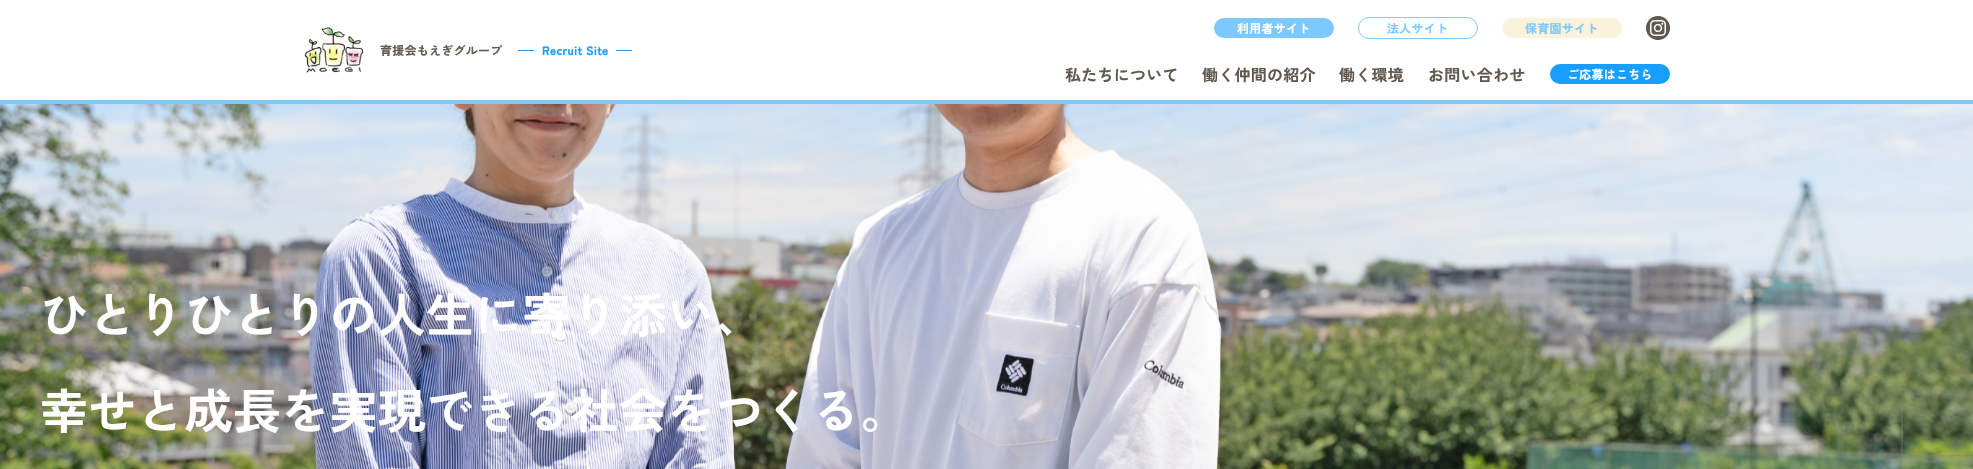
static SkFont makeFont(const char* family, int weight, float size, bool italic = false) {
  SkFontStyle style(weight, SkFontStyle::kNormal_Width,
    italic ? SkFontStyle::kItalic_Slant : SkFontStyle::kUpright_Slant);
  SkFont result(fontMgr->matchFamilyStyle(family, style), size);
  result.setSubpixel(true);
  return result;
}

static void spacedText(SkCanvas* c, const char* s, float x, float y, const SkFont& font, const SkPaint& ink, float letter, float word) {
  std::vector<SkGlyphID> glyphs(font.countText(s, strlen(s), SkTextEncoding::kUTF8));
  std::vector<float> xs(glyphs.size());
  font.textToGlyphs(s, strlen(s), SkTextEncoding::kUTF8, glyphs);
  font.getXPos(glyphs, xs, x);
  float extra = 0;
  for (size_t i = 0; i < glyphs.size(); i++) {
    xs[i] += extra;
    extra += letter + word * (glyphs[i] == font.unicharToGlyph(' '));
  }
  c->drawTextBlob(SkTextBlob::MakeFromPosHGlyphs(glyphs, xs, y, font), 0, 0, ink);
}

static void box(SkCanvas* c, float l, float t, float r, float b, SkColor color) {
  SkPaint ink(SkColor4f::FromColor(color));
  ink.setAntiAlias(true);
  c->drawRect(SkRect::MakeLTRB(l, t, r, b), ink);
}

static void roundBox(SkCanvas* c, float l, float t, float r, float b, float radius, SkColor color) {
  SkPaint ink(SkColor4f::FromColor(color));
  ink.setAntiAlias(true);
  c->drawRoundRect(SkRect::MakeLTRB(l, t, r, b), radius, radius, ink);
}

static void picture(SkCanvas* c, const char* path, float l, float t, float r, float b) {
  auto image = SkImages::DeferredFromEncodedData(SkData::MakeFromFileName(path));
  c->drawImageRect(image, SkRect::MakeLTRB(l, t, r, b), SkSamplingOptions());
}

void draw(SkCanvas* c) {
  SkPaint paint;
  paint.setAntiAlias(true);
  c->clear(0xffffffff);
  picture(c, "img_01.png", 304, 27, 364, 73);
  SkFont face1 = makeFont("Zen Kaku Gothic New", 700, 12);
  paint.setColor(0xff61584e);
  spacedText(c, "育援会もえぎグループ", 380, 55, face1, paint, 0.25f, 0);
  box(c, 518, 50, 534, 51, 0xff189eff);
  SkFont face2 = makeFont("Zen Kaku Gothic New", 900, 12);
  paint.setColor(0xff189eff);
  spacedText(c, "Recruit Site", 542, 55, face2, paint, 0.25f, 0);
  box(c, 616, 50, 632, 51, 0xff189eff);
  roundBox(c, 1214, 18, 1334, 38, 10, 0xff7cc8ff);
  paint.setColor(0xffffffff);
  spacedText(c, "利用者サイト", 1237, 33, face1, paint, 0.25f, 0);
  paint.setStyle(SkPaint::kStroke_Style);
  paint.setStrokeWidth(1);
  paint.setColor(0xff7cc8ff);
  c->drawRoundRect(SkRect::MakeLTRB(1358.5f, 17.5f, 1477.5f, 38.5f), 10.5f, 10.5f, paint);
  paint.setStyle(SkPaint::kFill_Style);
  spacedText(c, "法人サイト", 1387, 33, face1, paint, 0.25f, 0);
  roundBox(c, 1502, 18, 1622, 38, 10, 0xfffaf2da);
  spacedText(c, "保育園サイト", 1525, 33, face1, paint, 0.25f, 0);
  picture(c, "img_02.png", 1646, 16, 1670, 40);
  SkFont face3 = makeFont("Zen Kaku Gothic New", 700, 16);
  paint.setColor(0xff61584e);
  spacedText(c, "私たちについて", 1065, 81, face3, paint, 0.25f, 0);
  spacedText(c, "働く仲間の紹介", 1202, 81, face3, paint, 0.25f, 0);
  spacedText(c, "働く環境", 1339, 81, face3, paint, 0.25f, 0);
  spacedText(c, "お問い合わせ", 1428, 81, face3, paint, 0.25f, 0);
  roundBox(c, 1550, 64, 1670, 84, 10, 0xff189eff);
  paint.setColor(0xffffffff);
  spacedText(c, "ご応募はこちら", 1567, 79, face1, paint, 0.25f, 0);
  box(c, 0, 100, 1973, 104, 0xff7cc8ff);
  picture(c, "img_03.png", 0, 104, 1973, 469);
  SkFont face4 = makeFont("Zen Kaku Gothic New", 700, 48);
  spacedText(c, "ひとりひとりの人生に寄り添い、", 40, 333, face4, paint, 0.25f, 0);
  spacedText(c, "幸せと成長を実現できる社会をつくる。", 40, 429, face4, paint, 0.25f, 0);
  c->save();
  c->clipPath(SkPathBuilder(SkPathFillType::kEvenOdd).moveTo(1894, 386).lineTo(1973, 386).lineTo(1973, 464).lineTo(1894, 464).close().moveTo(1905, 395).lineTo(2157, 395).cubicTo(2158, 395, 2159, 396, 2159, 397).lineTo(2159, 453).cubicTo(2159, 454, 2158, 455, 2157, 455).lineTo(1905, 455).cubicTo(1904, 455, 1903, 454, 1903, 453).lineTo(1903, 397).cubicTo(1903, 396, 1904, 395, 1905, 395).close().detach(), true);
  paint.setColor(0xff808080);
  paint.setMaskFilter(SkMaskFilter::MakeBlur(kNormal_SkBlurStyle, 2.5f));
  c->drawRoundRect(SkRect::MakeLTRB(1903, 395, 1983, 455), 2, 2, paint);
  paint.setMaskFilter(nullptr);
  c->restore();
}
